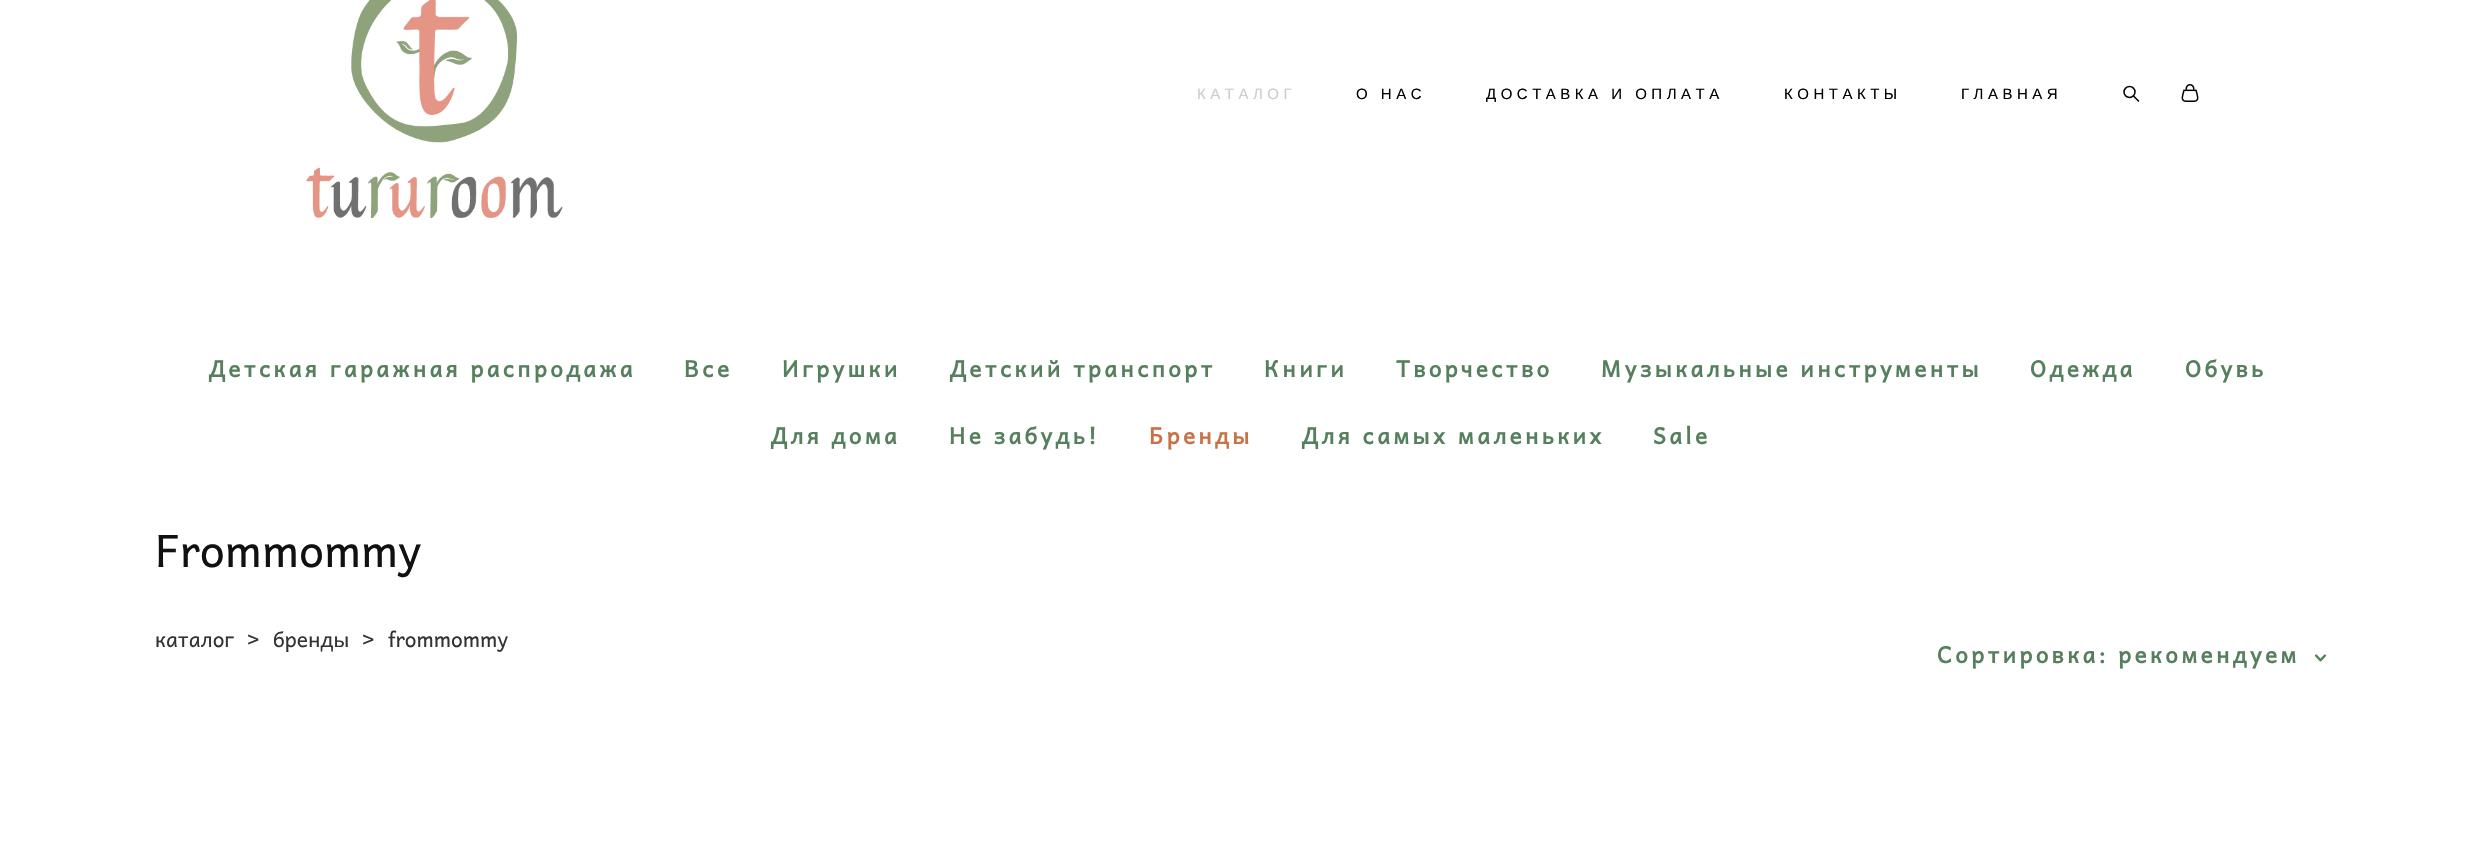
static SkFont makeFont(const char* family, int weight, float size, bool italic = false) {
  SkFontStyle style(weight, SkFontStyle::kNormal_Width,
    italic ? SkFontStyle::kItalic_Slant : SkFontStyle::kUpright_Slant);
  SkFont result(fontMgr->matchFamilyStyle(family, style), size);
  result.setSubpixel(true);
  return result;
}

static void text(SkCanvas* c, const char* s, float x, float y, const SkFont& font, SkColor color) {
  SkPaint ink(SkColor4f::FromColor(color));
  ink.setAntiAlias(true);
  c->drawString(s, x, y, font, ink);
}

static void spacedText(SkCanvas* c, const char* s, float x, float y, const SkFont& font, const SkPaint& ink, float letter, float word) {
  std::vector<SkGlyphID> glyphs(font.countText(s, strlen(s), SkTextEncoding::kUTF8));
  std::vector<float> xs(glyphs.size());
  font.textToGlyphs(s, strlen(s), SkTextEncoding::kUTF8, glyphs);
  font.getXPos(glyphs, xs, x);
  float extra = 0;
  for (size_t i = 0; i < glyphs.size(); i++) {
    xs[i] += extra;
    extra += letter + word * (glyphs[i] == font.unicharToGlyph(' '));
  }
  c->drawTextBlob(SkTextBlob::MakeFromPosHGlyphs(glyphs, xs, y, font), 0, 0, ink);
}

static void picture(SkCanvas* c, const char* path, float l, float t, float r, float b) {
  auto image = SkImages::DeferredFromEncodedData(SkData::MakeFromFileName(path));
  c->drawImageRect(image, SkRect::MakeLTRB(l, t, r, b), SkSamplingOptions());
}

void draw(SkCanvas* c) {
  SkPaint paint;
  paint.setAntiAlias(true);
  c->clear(0xffffffff);
  picture(c, "img_01.png", 306, 0, 563, 219);
  SkFont face1 = makeFont("Arimo", 400, 15);
  paint.setColor(0xffcccccc);
  spacedText(c, "КАТАЛОГ", 1197, 99, face1, paint, 4.5f, 0);
  paint.setColor(0xff000000);
  spacedText(c, "О НАС", 1356, 99, face1, paint, 4.5f, 0);
  spacedText(c, "ДОСТАВКА И ОПЛАТА", 1486, 99, face1, paint, 4.5f, 0);
  spacedText(c, "КОНТАКТЫ", 1784, 99, face1, paint, 4.5f, 0);
  spacedText(c, "ГЛАВНАЯ", 1961, 99, face1, paint, 4.5f, 0);
  paint.setStyle(SkPaint::kStroke_Style);
  paint.setStrokeWidth(1.5f);
  c->drawCircle(2129.5f, 92, 5.5f, paint);
  paint.setStrokeCap(SkPaint::kRound_Cap);
  paint.setStrokeJoin(SkPaint::kRound_Join);
  c->drawPath(SkPathBuilder().moveTo(2133.5f, 96).lineTo(2138.5f, 101).detach(), paint);
  picture(c, "img_02.png", 2181, 84, 2199, 102);
  SkFont face2 = makeFont("Andika", 700, 22.5f);
  paint.setStyle(SkPaint::kFill_Style);
  paint.setColor(0xff56805d);
  spacedText(c, "Детская гаражная распродажа", 208, 377, face2, paint, 3.4f, 0);
  spacedText(c, "Все", 684, 377, face2, paint, 3.4f, 0);
  spacedText(c, "Игрушки", 782, 377, face2, paint, 3.4f, 0);
  spacedText(c, "Детский транспорт", 949, 377, face2, paint, 3.4f, 0);
  spacedText(c, "Книги", 1264, 377, face2, paint, 3.4f, 0);
  spacedText(c, "Творчество", 1396, 377, face2, paint, 3.4f, 0);
  spacedText(c, "Музыкальные инструменты", 1601, 377, face2, paint, 3.4f, 0);
  spacedText(c, "Одежда", 2030, 377, face2, paint, 3.4f, 0);
  spacedText(c, "Обувь", 2185, 377, face2, paint, 3.4f, 0);
  spacedText(c, "Для дома", 770, 444, face2, paint, 3.4f, 0);
  spacedText(c, "Не забудь!", 949, 444, face2, paint, 3.4f, 0);
  paint.setColor(0xffc77248);
  spacedText(c, "Бренды", 1149, 444, face2, paint, 3.4f, 0);
  paint.setColor(0xff56805d);
  spacedText(c, "Для самых маленьких", 1301, 444, face2, paint, 3.4f, 0);
  spacedText(c, "Sale", 1653, 444, face2, paint, 3.4f, 0);
  SkFont face3 = makeFont("Andika", 400, 45);
  text(c, "Frommommy", 155, 567, face3, 0xff111111);
  SkFont face4 = makeFont("Andika", 400, 21);
  text(c, "каталог", 155, 647, face4, 0xff333333);
  text(c, ">", 247, 647, face4, 0xff333333);
  text(c, "бренды", 273, 647, face4, 0xff333333);
  text(c, ">", 362, 647, face4, 0xff333333);
  text(c, "frommommy", 388, 647, face4, 0xff333333);
  spacedText(c, "Сортировка: рекомендуем", 1937, 663, face2, paint, 3.4f, 0);
  picture(c, "img_03.png", 2315, 654, 2327, 662);
}
